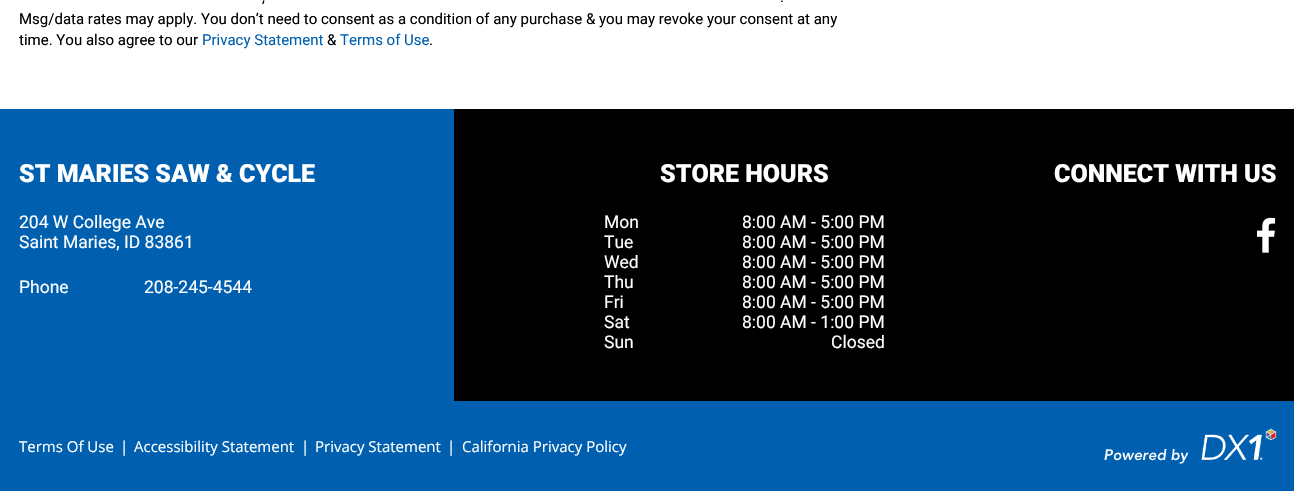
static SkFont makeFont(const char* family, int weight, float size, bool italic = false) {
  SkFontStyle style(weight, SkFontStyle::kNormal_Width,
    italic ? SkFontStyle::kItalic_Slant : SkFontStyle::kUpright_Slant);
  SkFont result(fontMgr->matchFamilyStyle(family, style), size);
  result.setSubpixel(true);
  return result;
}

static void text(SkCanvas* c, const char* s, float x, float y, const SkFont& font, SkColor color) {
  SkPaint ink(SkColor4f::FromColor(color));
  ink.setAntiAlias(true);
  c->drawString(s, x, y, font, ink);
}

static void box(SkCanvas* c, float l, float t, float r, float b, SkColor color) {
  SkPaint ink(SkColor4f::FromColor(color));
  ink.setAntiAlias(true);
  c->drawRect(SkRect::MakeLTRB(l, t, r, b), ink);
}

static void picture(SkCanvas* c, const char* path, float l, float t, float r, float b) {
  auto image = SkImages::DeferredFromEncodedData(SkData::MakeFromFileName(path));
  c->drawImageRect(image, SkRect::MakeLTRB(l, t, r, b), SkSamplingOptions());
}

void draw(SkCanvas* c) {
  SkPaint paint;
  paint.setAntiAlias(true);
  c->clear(0xffffffff);
  SkFont face1 = makeFont("Roboto", 400, 15);
  text(c, ",", 262, 2, face1, 0xff000000);
  text(c, ".", 780, 2, face1, 0xff000000);
  text(c, "Msg/data rates may apply. You don’t need to consent as a condition of any purchase & you may revoke your consent at any", 19, 24, face1, 0xff000000);
  text(c, "time. You also agree to our", 19, 45, face1, 0xff000000);
  text(c, "Privacy Statement", 202, 45, face1, 0xff0060af);
  text(c, "&", 327, 45, face1, 0xff000000);
  text(c, "Terms of Use", 340, 45, face1, 0xff0060af);
  text(c, ".", 429, 45, face1, 0xff000000);
  box(c, 454, 109, 1294, 401, 0xff000000);
  box(c, 0, 109, 454, 401, 0xff0060af);
  SkFont face2 = makeFont("Roboto", 900, 25);
  text(c, "ST MARIES SAW & CYCLE", 19, 182, face2, 0xffffffff);
  SkFont face3 = makeFont("Roboto", 400, 17.5f);
  text(c, "204 W College Ave", 19, 228, face3, 0xffffffff);
  text(c, "Saint Maries, ID 83861", 19, 248, face3, 0xffffffff);
  text(c, "Phone", 19, 293, face3, 0xffffffff);
  text(c, "208-245-4544", 144, 293, face3, 0xffffffff);
  text(c, "STORE HOURS", 660, 182, face2, 0xffffffff);
  text(c, "Mon", 604, 228, face3, 0xffffffff);
  text(c, "8:00 AM - 5:00 PM", 742, 228, face3, 0xffffffff);
  text(c, "Tue", 604, 248, face3, 0xffffffff);
  text(c, "8:00 AM - 5:00 PM", 742, 248, face3, 0xffffffff);
  text(c, "Wed", 604, 268, face3, 0xffffffff);
  text(c, "8:00 AM - 5:00 PM", 742, 268, face3, 0xffffffff);
  text(c, "Thu", 604, 288, face3, 0xffffffff);
  text(c, "8:00 AM - 5:00 PM", 742, 288, face3, 0xffffffff);
  text(c, "Fri", 604, 308, face3, 0xffffffff);
  text(c, "8:00 AM - 5:00 PM", 742, 308, face3, 0xffffffff);
  text(c, "Sat", 604, 328, face3, 0xffffffff);
  text(c, "8:00 AM - 1:00 PM", 742, 328, face3, 0xffffffff);
  text(c, "Sun", 604, 348, face3, 0xffffffff);
  text(c, "Closed", 831, 348, face3, 0xffffffff);
  text(c, "CONNECT WITH US", 1054, 182, face2, 0xffffffff);
  picture(c, "img_01.png", 1257, 217, 1276, 253);
  box(c, 0, 401, 1294, 491, 0xff0060af);
  SkFont face4 = makeFont("Open Sans", 400, 15);
  text(c, "Terms Of Use", 19, 452, face4, 0xffffffff);
  text(c, "|", 120, 452, face4, 0xffffffff);
  text(c, "Accessibility Statement", 134, 452, face4, 0xffffffff);
  text(c, "|", 301, 452, face4, 0xffffffff);
  text(c, "Privacy Statement", 315, 452, face4, 0xffffffff);
  text(c, "|", 447, 452, face4, 0xffffffff);
  text(c, "California Privacy Policy", 462, 452, face4, 0xffffffff);
  picture(c, "img_02.png", 1104, 428, 1277, 464);
}
